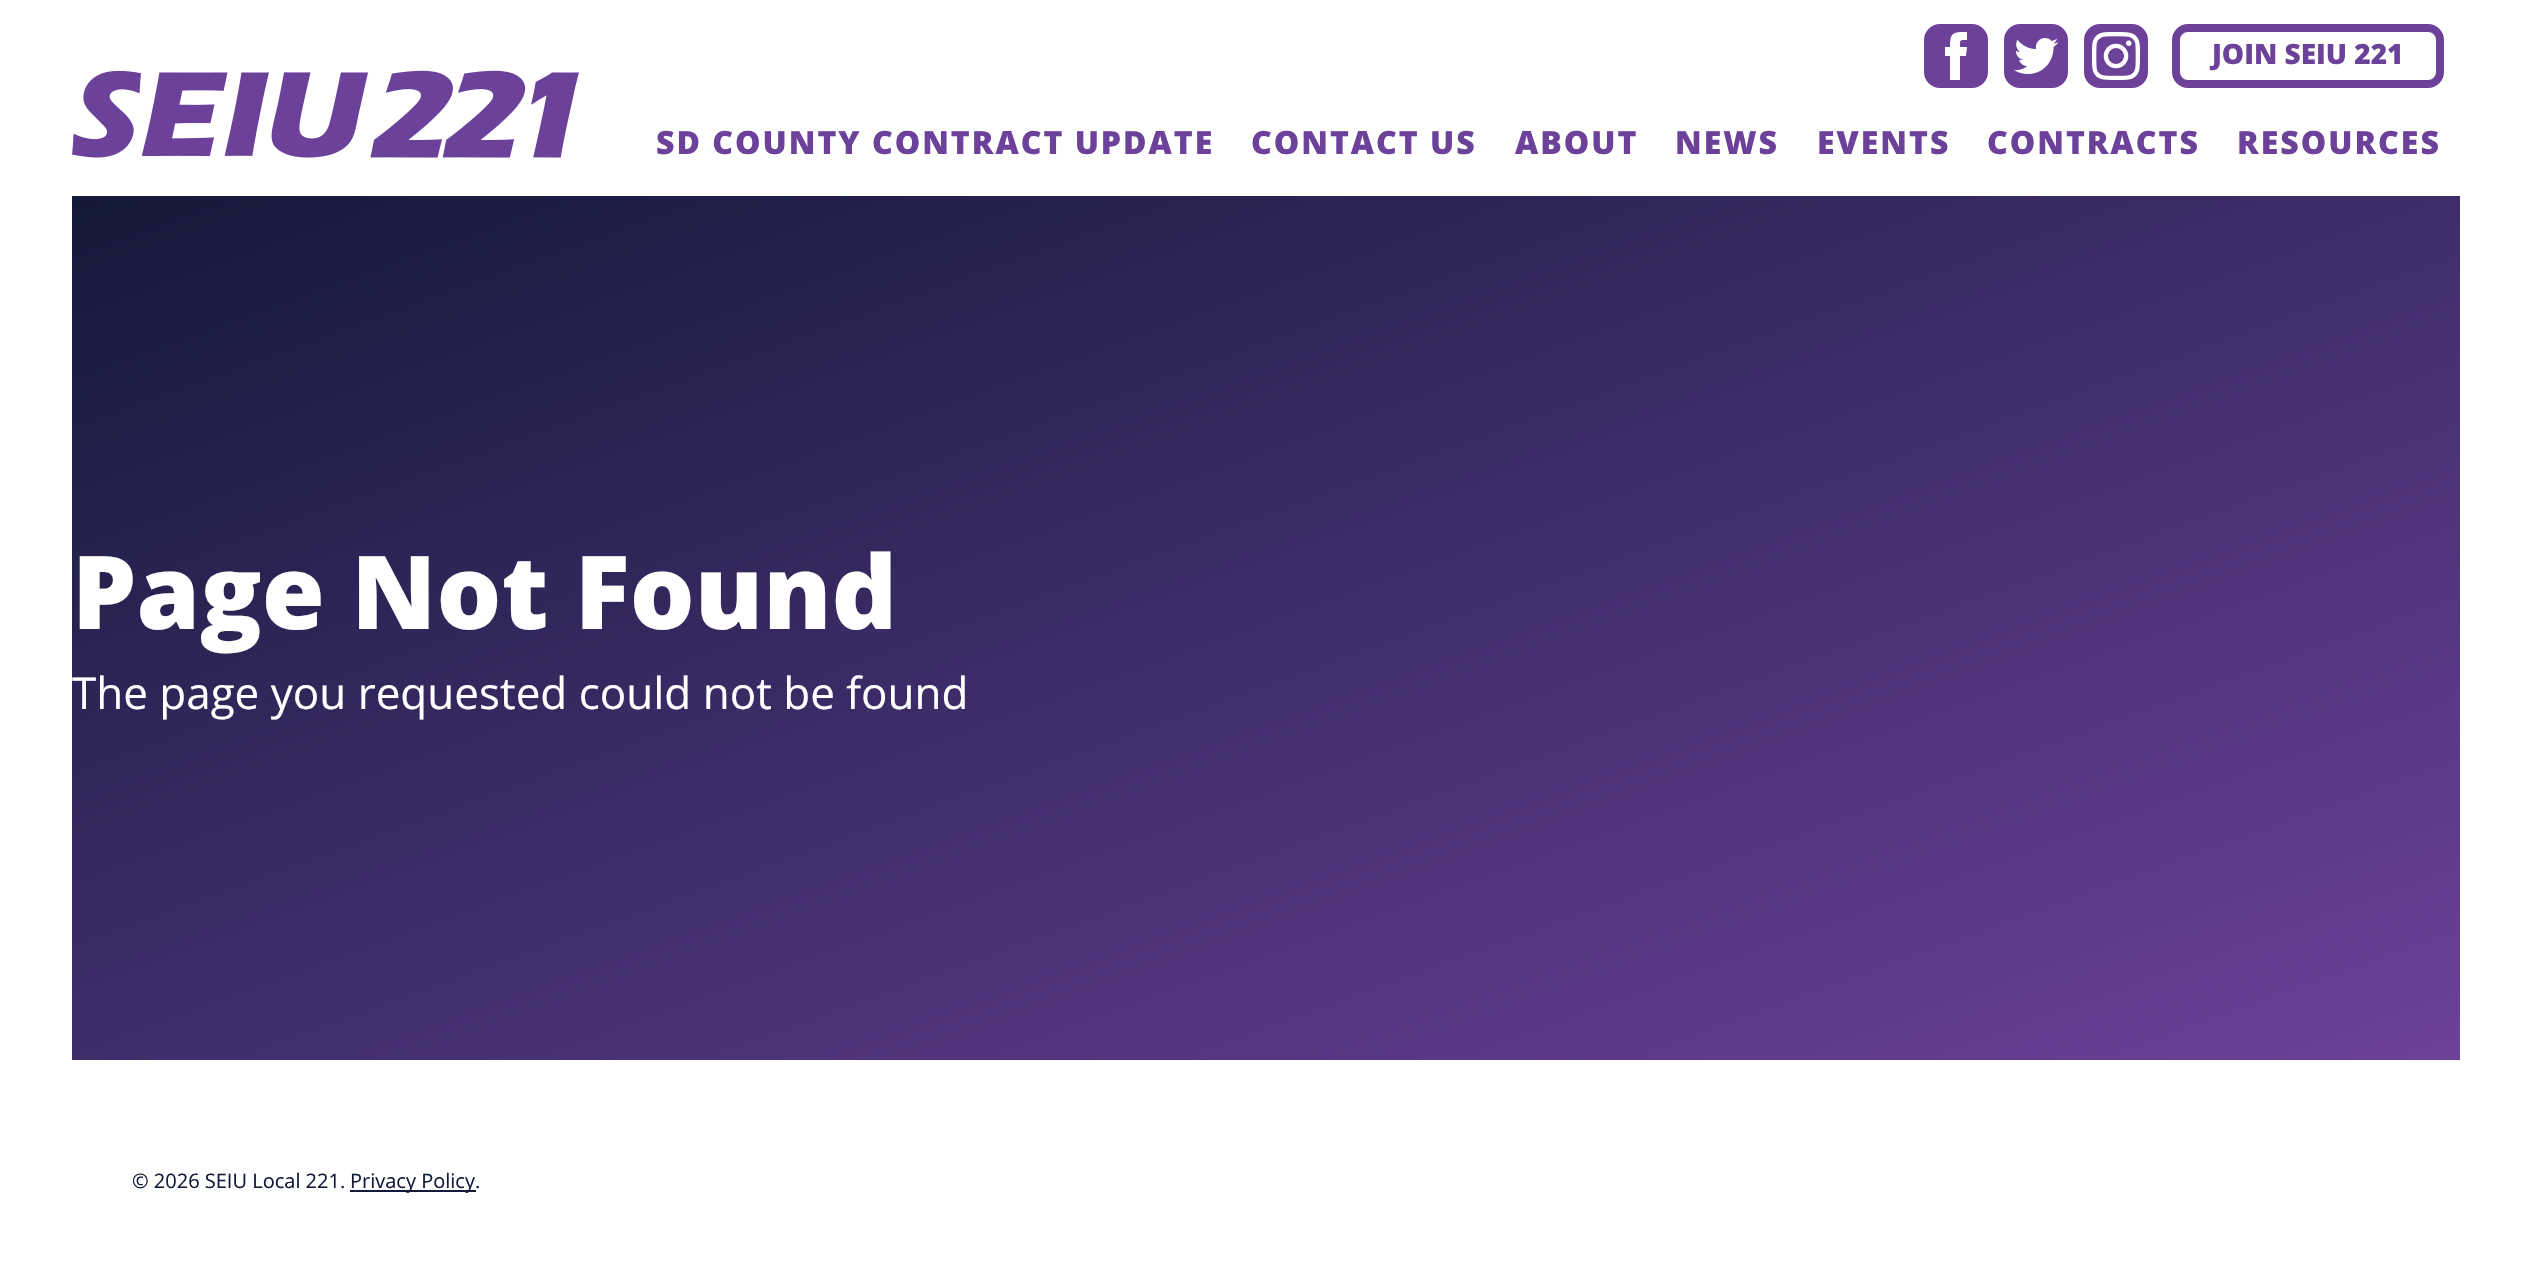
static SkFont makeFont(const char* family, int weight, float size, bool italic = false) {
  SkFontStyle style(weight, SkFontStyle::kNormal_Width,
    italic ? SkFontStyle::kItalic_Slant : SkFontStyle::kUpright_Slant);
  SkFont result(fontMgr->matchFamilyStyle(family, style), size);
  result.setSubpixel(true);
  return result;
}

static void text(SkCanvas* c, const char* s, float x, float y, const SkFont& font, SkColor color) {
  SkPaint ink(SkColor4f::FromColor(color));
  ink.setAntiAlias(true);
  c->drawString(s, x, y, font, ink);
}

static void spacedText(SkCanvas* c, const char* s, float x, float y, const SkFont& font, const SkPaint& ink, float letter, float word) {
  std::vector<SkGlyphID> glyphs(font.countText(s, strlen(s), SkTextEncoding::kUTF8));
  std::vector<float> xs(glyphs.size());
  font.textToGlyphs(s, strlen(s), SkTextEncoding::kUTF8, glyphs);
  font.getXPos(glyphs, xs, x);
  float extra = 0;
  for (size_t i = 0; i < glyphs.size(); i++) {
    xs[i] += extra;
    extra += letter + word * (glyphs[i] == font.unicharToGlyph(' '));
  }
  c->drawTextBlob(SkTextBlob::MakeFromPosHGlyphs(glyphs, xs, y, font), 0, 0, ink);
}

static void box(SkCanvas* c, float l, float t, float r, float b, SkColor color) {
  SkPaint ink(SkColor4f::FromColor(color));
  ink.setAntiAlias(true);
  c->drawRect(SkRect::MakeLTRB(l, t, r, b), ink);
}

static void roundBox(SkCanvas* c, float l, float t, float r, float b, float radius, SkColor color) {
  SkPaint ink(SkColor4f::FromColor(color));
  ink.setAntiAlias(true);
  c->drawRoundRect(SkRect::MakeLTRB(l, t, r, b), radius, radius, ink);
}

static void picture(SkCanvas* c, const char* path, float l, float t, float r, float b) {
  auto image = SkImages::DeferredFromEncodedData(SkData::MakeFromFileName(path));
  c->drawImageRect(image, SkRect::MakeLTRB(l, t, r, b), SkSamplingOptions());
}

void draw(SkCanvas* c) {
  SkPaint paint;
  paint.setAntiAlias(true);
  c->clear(0xffffffff);
  picture(c, "img_01.png", 72, 70, 579, 158);
  roundBox(c, 1924, 24, 1988, 88, 16, 0xff6c419a);
  paint.setColor(0xffffffff);
  c->drawPath(SkPathBuilder().moveTo(1966, 56).lineTo(1960, 56).lineTo(1960, 80).lineTo(1950, 80).lineTo(1950, 56).lineTo(1945, 56).lineTo(1945, 47).lineTo(1950, 47).cubicTo(1950, 32, 1953, 32, 1967, 32).lineTo(1967, 40).cubicTo(1960, 40, 1960, 39, 1960, 47).lineTo(1967, 47).close().detach(), paint);
  roundBox(c, 2004, 24, 2068, 88, 16, 0xff6c419a);
  picture(c, "img_02.png", 2014, 38, 2059, 74);
  roundBox(c, 2084, 24, 2148, 88, 16, 0xff6c419a);
  picture(c, "img_03.png", 2092, 32, 2140, 80);
  paint.setStyle(SkPaint::kStroke_Style);
  paint.setStrokeWidth(8);
  paint.setColor(0xff6c419a);
  c->drawRoundRect(SkRect::MakeLTRB(2176, 28, 2440, 84), 12, 12, paint);
  SkFont face1 = makeFont("Open Sans", 800, 28);
  text(c, "JOIN SEIU 221", 2212, 64, face1, 0xff6c419a);
  SkFont face2 = makeFont("Open Sans", 800, 32);
  paint.setStyle(SkPaint::kFill_Style);
  spacedText(c, "SD COUNTY CONTRACT UPDATE", 656, 154, face2, paint, 2, 0);
  spacedText(c, "CONTACT US", 1251, 154, face2, paint, 2, 0);
  spacedText(c, "ABOUT", 1515, 154, face2, paint, 2, 0);
  spacedText(c, "NEWS", 1675, 154, face2, paint, 2, 0);
  spacedText(c, "EVENTS", 1817, 154, face2, paint, 2, 0);
  spacedText(c, "CONTRACTS", 1987, 154, face2, paint, 2, 0);
  spacedText(c, "RESOURCES", 2237, 154, face2, paint, 2, 0);
  {
    const SkColor colors[] = {0xff13193a, 0xff6c419a};
    const float stops[] = {0, 1};
    const SkPoint ends[] = {{990, -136}, {1542, 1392}};
    paint.setShader(SkGradientShader::MakeLinear(ends, colors, stops, 2, SkTileMode::kClamp));
    paint.setAlpha(255);
  }
  c->drawRect(SkRect::MakeLTRB(72, 196, 2460, 1060), paint);
  SkFont face3 = makeFont("Open Sans", 800, 102);
  text(c, "Page Not Found", 72, 629, face3, 0xffffffff);
  SkFont face4 = makeFont("Open Sans", 400, 44);
  text(c, "The page you requested could not be found", 72, 709, face4, 0xffffffff);
  SkFont face5 = makeFont("Open Sans", 400, 20);
  text(c, "© 2026 SEIU Local 221.", 132, 1188, face5, 0xff13193a);
  box(c, 350, 1190, 476, 1192, 0xff13193a);
  text(c, "Privacy Policy.", 350, 1188, face5, 0xff13193a);
}
